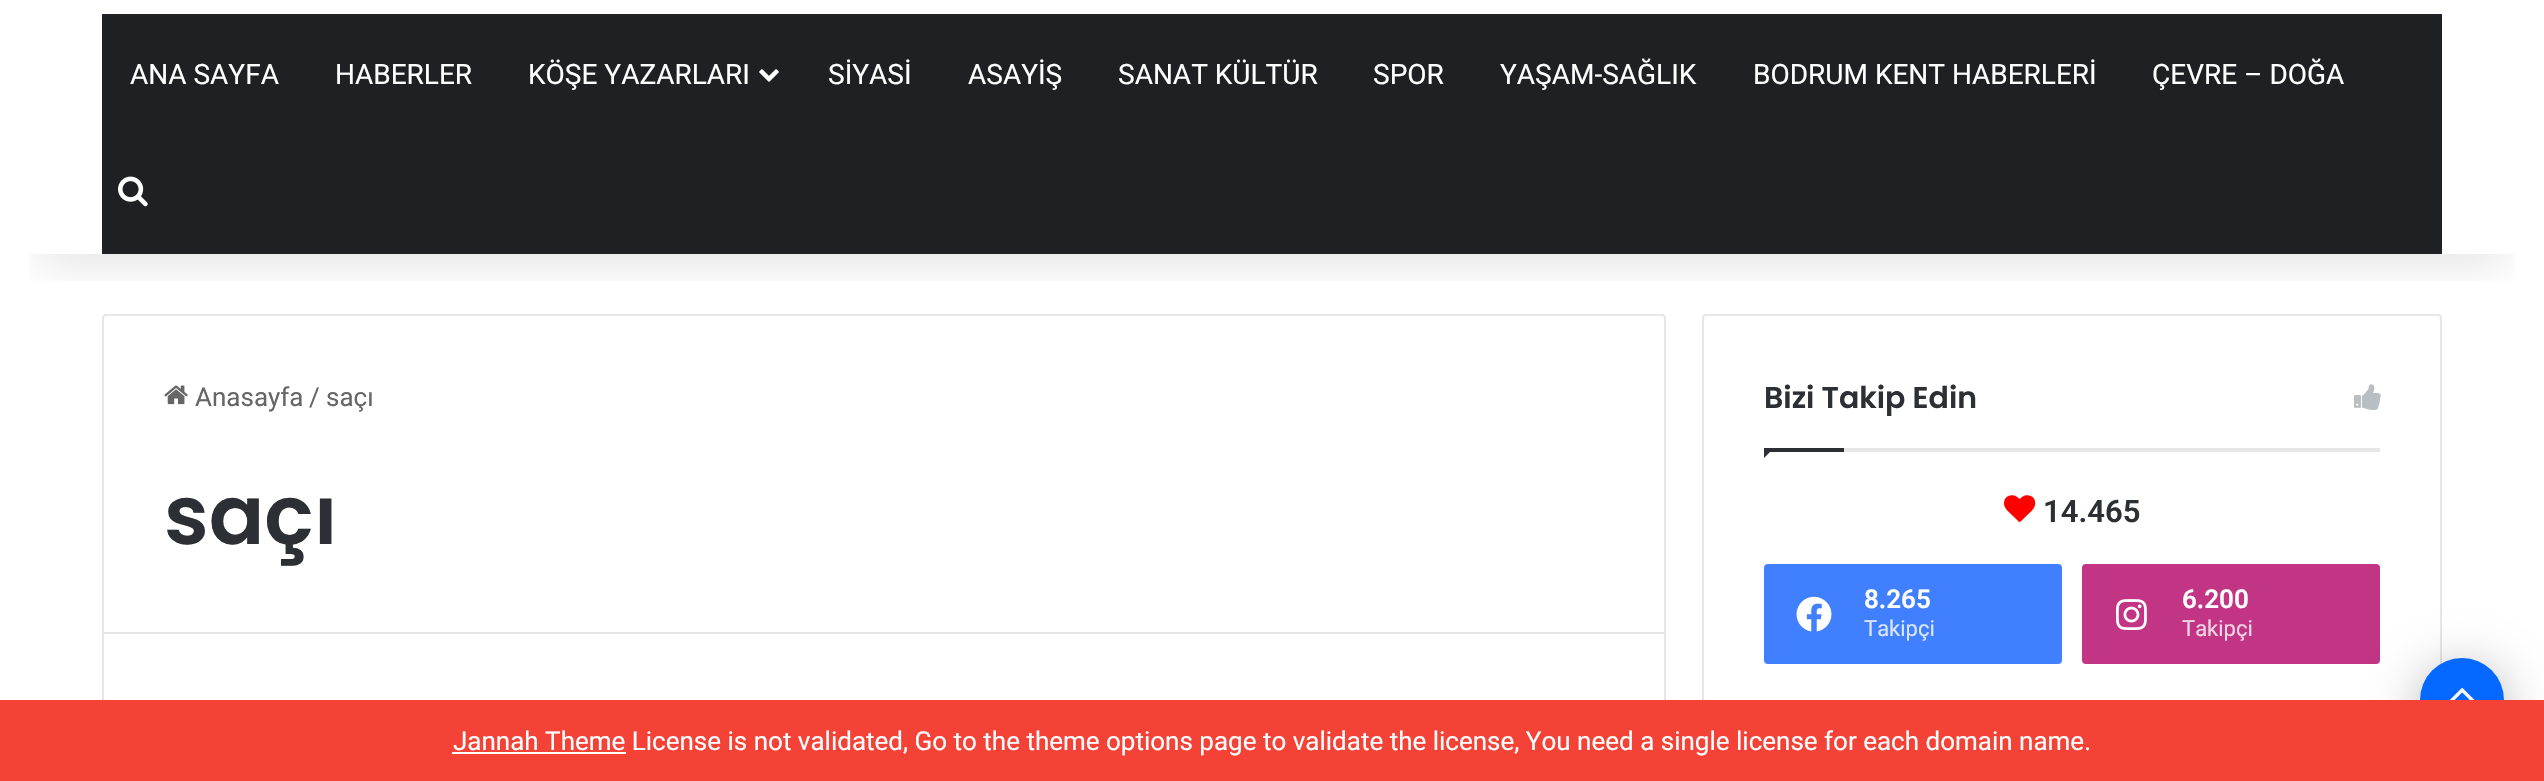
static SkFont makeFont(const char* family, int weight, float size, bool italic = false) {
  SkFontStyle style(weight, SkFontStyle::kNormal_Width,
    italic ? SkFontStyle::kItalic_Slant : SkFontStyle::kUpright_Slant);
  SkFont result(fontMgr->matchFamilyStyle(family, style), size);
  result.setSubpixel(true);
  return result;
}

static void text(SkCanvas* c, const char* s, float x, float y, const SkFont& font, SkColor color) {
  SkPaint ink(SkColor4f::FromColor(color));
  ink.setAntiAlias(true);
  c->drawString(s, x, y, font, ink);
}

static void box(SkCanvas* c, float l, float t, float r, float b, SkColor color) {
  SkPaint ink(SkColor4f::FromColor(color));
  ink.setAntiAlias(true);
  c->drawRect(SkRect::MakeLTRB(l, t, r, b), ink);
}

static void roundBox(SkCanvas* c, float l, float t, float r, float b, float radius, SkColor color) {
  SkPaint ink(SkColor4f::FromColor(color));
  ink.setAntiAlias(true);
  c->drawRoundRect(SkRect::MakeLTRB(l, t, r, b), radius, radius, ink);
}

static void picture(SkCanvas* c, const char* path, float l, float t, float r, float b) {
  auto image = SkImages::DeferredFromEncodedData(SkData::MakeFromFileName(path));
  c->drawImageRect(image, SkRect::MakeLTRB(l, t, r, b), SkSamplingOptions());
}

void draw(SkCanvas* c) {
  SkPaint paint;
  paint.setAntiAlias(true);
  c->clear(0xffffffff);
  paint.setStyle(SkPaint::kStroke_Style);
  paint.setStrokeWidth(2);
  paint.setColor(0xffe6e6e6);
  c->drawPath(SkPathBuilder().moveTo(106, 315).lineTo(1662, 315).cubicTo(1663.5f, 315, 1665, 316.5f, 1665, 318).lineTo(1665, 633).lineTo(103, 633).lineTo(103, 318).cubicTo(103, 316.5f, 104.5f, 315, 106, 315).close().detach(), paint);
  c->drawRoundRect(SkRect::MakeLTRB(1703, 315, 2441, 725), 3, 3, paint);
  c->save();
  c->clipRect(SkRect::MakeLTRB(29, 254, 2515, 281));
  paint.setStyle(SkPaint::kFill_Style);
  paint.setColor(0x1a000000);
  paint.setMaskFilter(SkMaskFilter::MakeBlur(kNormal_SkBlurStyle, 20));
  c->drawRect(SkRect::MakeLTRB(40, -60, 2504, 264), paint);
  paint.setMaskFilter(nullptr);
  c->restore();
  box(c, 102, 14, 2442, 254, 0xff1f2024);
  SkFont face1 = makeFont("Roboto", 400, 28);
  text(c, "ANA SAYFA", 130, 84, face1, 0xffffffff);
  text(c, "HABERLER", 335, 84, face1, 0xffffffff);
  text(c, "KÖŞE YAZARLARI", 528, 84, face1, 0xffffffff);
  picture(c, "img_01.png", 759, 69, 779, 82);
  text(c, "SİYASİ", 828, 84, face1, 0xffffffff);
  text(c, "ASAYİŞ", 968, 84, face1, 0xffffffff);
  text(c, "SANAT KÜLTÜR", 1118, 84, face1, 0xffffffff);
  text(c, "SPOR", 1373, 84, face1, 0xffffffff);
  text(c, "YAŞAM-SAĞLIK", 1500, 84, face1, 0xffffffff);
  text(c, "BODRUM KENT HABERLERİ", 1753, 84, face1, 0xffffffff);
  text(c, "ÇEVRE – DOĞA", 2152, 84, face1, 0xffffffff);
  picture(c, "img_02.png", 118, 176, 148, 207);
  picture(c, "img_03.png", 164, 385, 188, 405);
  SkFont face2 = makeFont("Roboto", 400, 26);
  text(c, "Anasayfa", 195, 406, face2, 0xff666666);
  text(c, "/", 309, 406, face2, 0xff666666);
  text(c, "saçı", 326, 406, face2, 0xff666666);
  SkFont face3 = makeFont("Poppins", 600, 82);
  text(c, "saçı", 164, 544, face3, 0xff2c2f34);
  box(c, 1664, 634, 1666, 700, 0xffe6e6e6);
  box(c, 102, 634, 104, 700, 0xffe6e6e6);
  box(c, 1844, 448, 2380, 452, 0xffe6e6e6);
  SkFont face4 = makeFont("Poppins", 600, 30);
  text(c, "Bizi Takip Edin", 1764, 408, face4, 0xff2c2f34);
  picture(c, "img_04.png", 2354, 384, 2381, 410);
  paint.setColor(0xff2c2f34);
  c->drawPath(SkPathBuilder().moveTo(1764, 448).lineTo(1774, 448).lineTo(1764, 458).close().detach(), paint);
  box(c, 1764, 448, 1844, 452, 0xff2c2f34);
  picture(c, "img_05.png", 2004, 495, 2036, 522);
  SkFont face5 = makeFont("Roboto", 600, 31);
  text(c, "14.465", 2043, 522, face5, 0xff2c2f34);
  roundBox(c, 1764, 564, 2062, 664, 4, 0xff4080ff);
  picture(c, "img_06.png", 1796, 596, 1832, 632);
  SkFont face6 = makeFont("Roboto", 600, 26);
  text(c, "8.265", 1864, 608, face6, 0xffffffff);
  SkFont face7 = makeFont("Roboto", 400, 22);
  text(c, "Takipçi", 1864, 636, face7, 0xffd9e6ff);
  roundBox(c, 2082, 564, 2380, 664, 4, 0xffc13584);
  picture(c, "img_07.png", 2116, 599, 2147, 630);
  text(c, "6.200", 2182, 608, face6, 0xffffffff);
  text(c, "Takipçi", 2182, 636, face7, 0xfff3d7e6);
  paint.setColor(0x4d000000);
  paint.setMaskFilter(SkMaskFilter::MakeBlur(kNormal_SkBlurStyle, 25));
  c->drawRoundRect(SkRect::MakeLTRB(2420, 668, 2504, 752), 42, 42, paint);
  paint.setMaskFilter(nullptr);
  paint.setColor(0xff0669ff);
  c->drawCircle(2462, 700, 42, paint);
  picture(c, "img_08.png", 2450, 688, 2475, 700);
  box(c, 0, 700, 2544, 781, 0xfff44336);
  box(c, 452, 752, 626, 754, 0xffffffff);
  text(c, "Jannah Theme License is not validated, Go to the theme options page to validate the license, You need a single license for each domain name.", 453, 750, face2, 0xffffffff);
}
